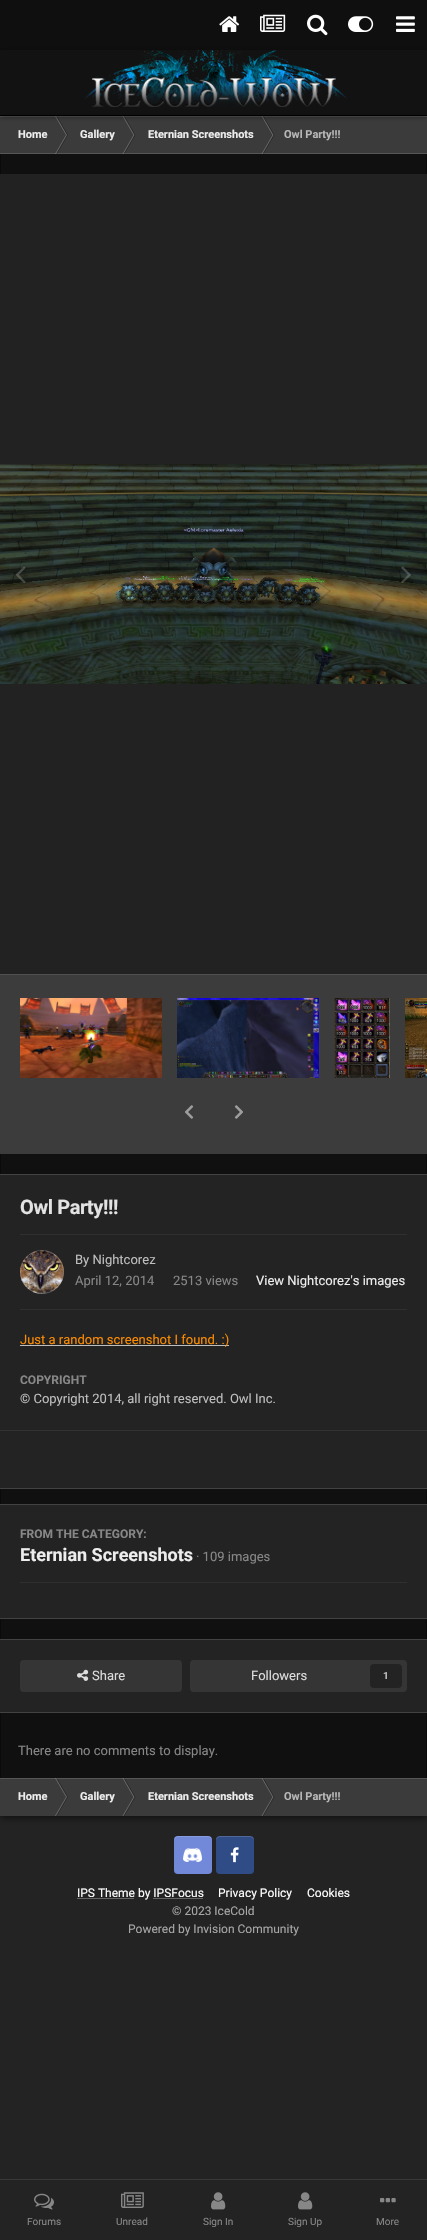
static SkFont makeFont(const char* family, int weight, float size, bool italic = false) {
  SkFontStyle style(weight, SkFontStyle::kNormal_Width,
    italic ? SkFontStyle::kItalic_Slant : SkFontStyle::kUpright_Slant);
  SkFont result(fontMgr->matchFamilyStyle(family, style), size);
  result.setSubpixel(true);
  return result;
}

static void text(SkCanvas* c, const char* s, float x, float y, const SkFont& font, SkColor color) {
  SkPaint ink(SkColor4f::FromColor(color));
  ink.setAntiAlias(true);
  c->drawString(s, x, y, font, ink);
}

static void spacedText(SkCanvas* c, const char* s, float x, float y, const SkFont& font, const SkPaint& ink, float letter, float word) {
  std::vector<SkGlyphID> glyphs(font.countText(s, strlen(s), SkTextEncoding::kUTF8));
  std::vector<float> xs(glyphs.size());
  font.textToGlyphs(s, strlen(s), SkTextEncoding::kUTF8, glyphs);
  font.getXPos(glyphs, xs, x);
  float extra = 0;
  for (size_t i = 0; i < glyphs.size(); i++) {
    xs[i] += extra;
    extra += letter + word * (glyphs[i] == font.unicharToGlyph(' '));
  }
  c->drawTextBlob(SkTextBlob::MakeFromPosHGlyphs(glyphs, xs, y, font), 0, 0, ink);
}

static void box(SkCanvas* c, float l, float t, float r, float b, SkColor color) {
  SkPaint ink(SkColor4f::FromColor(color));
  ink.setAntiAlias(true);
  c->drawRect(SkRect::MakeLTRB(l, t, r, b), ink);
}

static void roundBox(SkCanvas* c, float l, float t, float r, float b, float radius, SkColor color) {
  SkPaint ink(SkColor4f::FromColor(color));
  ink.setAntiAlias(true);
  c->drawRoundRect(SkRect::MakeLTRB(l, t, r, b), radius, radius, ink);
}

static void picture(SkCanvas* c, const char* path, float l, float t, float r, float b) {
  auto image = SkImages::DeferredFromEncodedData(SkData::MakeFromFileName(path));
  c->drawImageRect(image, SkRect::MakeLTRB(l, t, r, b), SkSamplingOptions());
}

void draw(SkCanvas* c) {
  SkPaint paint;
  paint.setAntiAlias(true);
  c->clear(0xff232323);
  box(c, 0, 0, 427, 50, 0xff0f0f0f);
  picture(c, "img_01.png", 219, 16, 240, 32);
  picture(c, "img_02.png", 260, 14, 286, 32);
  picture(c, "img_03.png", 307, 14, 328, 36);
  picture(c, "img_04.png", 348, 16, 374, 32);
  picture(c, "img_05.png", 396, 16, 415, 32);
  paint.setColor(0xb3000000);
  paint.setMaskFilter(SkMaskFilter::MakeBlur(kNormal_SkBlurStyle, 4));
  c->drawRect(SkRect::MakeLTRB(0, 117, 427, 1817), paint);
  paint.setMaskFilter(nullptr);
  box(c, 1, 154, 426, 1778, 0xff101010);
  paint.setStyle(SkPaint::kStroke_Style);
  paint.setStrokeWidth(1);
  paint.setColor(0xff0a0a0a);
  c->drawRect(SkRect::MakeLTRB(0.5f, 116.5f, 426.5f, 1815.5f), paint);
  box(c, 0, 116, 427, 154, 0xff3b3b3b);
  paint.setStyle(SkPaint::kFill_Style);
  paint.setColor(0xff6c6c6c);
  c->drawPath(SkPathBuilder().moveTo(55, 116).lineTo(56, 116).lineTo(67, 135).lineTo(66, 135).close().detach(), paint);
  paint.setColor(0x4d000000);
  c->drawPath(SkPathBuilder().moveTo(56, 116).lineTo(57, 116).lineTo(68, 135).lineTo(67, 135).close().detach(), paint);
  paint.setColor(0xff6c6c6c);
  c->drawPath(SkPathBuilder().moveTo(122.5f, 116).lineTo(123.5f, 116).lineTo(134.5f, 135).lineTo(133.5f, 135).close().detach(), paint);
  paint.setColor(0x4d000000);
  c->drawPath(SkPathBuilder().moveTo(123.5f, 116).lineTo(124.5f, 116).lineTo(135.5f, 135).lineTo(134.5f, 135).close().detach(), paint);
  paint.setColor(0xff6c6c6c);
  c->drawPath(SkPathBuilder().moveTo(261.5f, 116).lineTo(262.5f, 116).lineTo(273.5f, 135).lineTo(272.5f, 135).close().detach(), paint);
  paint.setColor(0x4d000000);
  c->drawPath(SkPathBuilder().moveTo(262.5f, 116).lineTo(263.5f, 116).lineTo(274.5f, 135).lineTo(273.5f, 135).close().detach(), paint);
  box(c, 0, 116, 427, 117, 0x33bfbfbf);
  c->save();
  c->clipPath(SkPathBuilder(SkPathFillType::kEvenOdd).moveTo(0, 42).lineTo(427, 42).lineTo(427, 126).lineTo(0, 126).close().moveTo(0, 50).lineTo(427, 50).lineTo(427, 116).lineTo(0, 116).close().detach(), true);
  paint.setColor(0x66000000);
  paint.setMaskFilter(SkMaskFilter::MakeBlur(kNormal_SkBlurStyle, 2.5f));
  c->drawRect(SkRect::MakeLTRB(0, 51, 427, 117), paint);
  paint.setMaskFilter(nullptr);
  c->restore();
  box(c, 0, 50, 427, 115, 0xe60f0f0f);
  box(c, 0, 115, 427, 116, 0xff000000);
  picture(c, "img_06.png", 85, 50, 347, 107);
  paint.setColor(0xff6c6c6c);
  c->drawPath(SkPathBuilder().moveTo(55, 154).lineTo(56, 154).lineTo(67, 135).lineTo(66, 135).close().detach(), paint);
  paint.setColor(0x4d000000);
  c->drawPath(SkPathBuilder().moveTo(56, 154).lineTo(57, 154).lineTo(68, 135).lineTo(67, 135).close().detach(), paint);
  paint.setColor(0xff6c6c6c);
  c->drawPath(SkPathBuilder().moveTo(122.5f, 154).lineTo(123.5f, 154).lineTo(134.5f, 135).lineTo(133.5f, 135).close().detach(), paint);
  paint.setColor(0x4d000000);
  c->drawPath(SkPathBuilder().moveTo(123.5f, 154).lineTo(124.5f, 154).lineTo(135.5f, 135).lineTo(134.5f, 135).close().detach(), paint);
  paint.setColor(0xff6c6c6c);
  c->drawPath(SkPathBuilder().moveTo(261.5f, 154).lineTo(262.5f, 154).lineTo(273.5f, 135).lineTo(272.5f, 135).close().detach(), paint);
  paint.setColor(0x4d000000);
  c->drawPath(SkPathBuilder().moveTo(262.5f, 154).lineTo(263.5f, 154).lineTo(274.5f, 135).lineTo(273.5f, 135).close().detach(), paint);
  box(c, 0, 153, 427, 154, 0x33bfbfbf);
  SkFont face1 = makeFont("Roboto", 700, 11);
  text(c, "Home", 18, 138, face1, 0xffededed);
  text(c, "Gallery", 80, 138, face1, 0xffededed);
  text(c, "Eternian Screenshots", 148, 138, face1, 0xffededed);
  text(c, "Owl Party!!!", 284, 138, face1, 0xffb8b8b8);
  box(c, 0, 174, 427, 974, 0xff222222);
  picture(c, "img_07.png", 0, 464, 427, 684);
  picture(c, "img_08.png", 16, 566, 26, 583);
  picture(c, "img_09.png", 401, 566, 411, 583);
  box(c, 0, 975, 427, 1154, 0xff3c3c3c);
  box(c, 0, 974, 427, 975, 0xff505050);
  picture(c, "img_10.png", 20, 998, 162, 1078);
  picture(c, "img_11.png", 177, 998, 319, 1078);
  picture(c, "img_12.png", 334, 998, 390, 1078);
  picture(c, "img_13.png", 405, 998, 427, 1078);
  picture(c, "img_14.png", 185, 1105, 194, 1119);
  picture(c, "img_15.png", 234, 1105, 243, 1119);
  box(c, 0, 1175, 427, 1488, 0xff232323);
  box(c, 0, 1174, 427, 1175, 0xff424242);
  box(c, 0, 1488, 427, 1489, 0xff424242);
  SkFont face2 = makeFont("Roboto", 700, 20);
  paint.setColor(0xffe3e3e3);
  spacedText(c, "Owl Party!!!", 20, 1214, face2, paint, -0.4f, 0);
  box(c, 20, 1234, 407, 1235, 0xff2f2f2f);
  picture(c, "img_16.png", 20, 1250, 64, 1294);
  paint.setStyle(SkPaint::kStroke_Style);
  paint.setColor(0x4dbfbfbf);
  c->drawCircle(42, 1272, 21.5f, paint);
  SkFont face3 = makeFont("Roboto", 400, 13);
  text(c, "By Nightcorez", 75, 1264, face3, 0xffbfbfbf);
  text(c, "April 12, 2014", 75, 1285, face3, 0xff878787);
  text(c, "2513 views", 173, 1285, face3, 0xff878787);
  text(c, "View Nightcorez's images", 256, 1285, face3, 0xffededed);
  box(c, 20, 1309, 407, 1310, 0xff2f2f2f);
  box(c, 20, 1345, 229, 1346, 0xffbfbfbf);
  text(c, "Just a random screenshot I found. :)", 20, 1344, face3, 0xffff8c00);
  SkFont face4 = makeFont("Roboto", 700, 12);
  text(c, "COPYRIGHT", 20, 1384, face4, 0xff878787);
  text(c, "© Copyright 2014, all right reserved. Owl Inc.", 20, 1403, face3, 0xffbfbfbf);
  box(c, 0, 1430, 427, 1431, 0xff333333);
  box(c, 0, 1505, 427, 1618, 0xff232323);
  box(c, 0, 1504, 427, 1505, 0xff424242);
  box(c, 0, 1618, 427, 1619, 0xff424242);
  text(c, "FROM THE CATEGORY:", 20, 1538, face4, 0xff878787);
  SkFont face5 = makeFont("Roboto", 700, 18);
  text(c, "Eternian Screenshots", 20, 1561, face5, 0xffededed);
  text(c, "· 109 images", 196, 1561, face3, 0xff878787);
  box(c, 20, 1582, 407, 1583, 0xff2f2f2f);
  box(c, 0, 1640, 427, 1712, 0xff232323);
  box(c, 0, 1639, 427, 1640, 0xff424242);
  box(c, 0, 1712, 427, 1713, 0xff424242);
  roundBox(c, 20, 1660, 182, 1692, 4, 0xff353535);
  picture(c, "img_17.png", 77, 1669, 89, 1681);
  text(c, "Share", 92, 1680, face3, 0xffdddddd);
  roundBox(c, 190, 1660, 407, 1692, 4, 0xff353535);
  text(c, "Followers", 251, 1680, face3, 0xffdddddd);
  roundBox(c, 370, 1664, 402, 1688, 4, 0xff232323);
  SkFont face6 = makeFont("Roboto", 700, 10);
  text(c, "1", 383, 1679, face6, 0xffbfbfbf);
  text(c, "There are no comments to display.", 18, 1755, face3, 0xff878787);
  box(c, 0, 1778, 427, 1816, 0xff3b3b3b);
  paint.setStyle(SkPaint::kFill_Style);
  paint.setColor(0xff6c6c6c);
  c->drawPath(SkPathBuilder().moveTo(55, 1778).lineTo(56, 1778).lineTo(67, 1797).lineTo(66, 1797).close().detach(), paint);
  paint.setColor(0x4d000000);
  c->drawPath(SkPathBuilder().moveTo(56, 1778).lineTo(57, 1778).lineTo(68, 1797).lineTo(67, 1797).close().detach(), paint);
  paint.setColor(0xff6c6c6c);
  c->drawPath(SkPathBuilder().moveTo(122.5f, 1778).lineTo(123.5f, 1778).lineTo(134.5f, 1797).lineTo(133.5f, 1797).close().detach(), paint);
  paint.setColor(0x4d000000);
  c->drawPath(SkPathBuilder().moveTo(123.5f, 1778).lineTo(124.5f, 1778).lineTo(135.5f, 1797).lineTo(134.5f, 1797).close().detach(), paint);
  paint.setColor(0xff6c6c6c);
  c->drawPath(SkPathBuilder().moveTo(261.5f, 1778).lineTo(262.5f, 1778).lineTo(273.5f, 1797).lineTo(272.5f, 1797).close().detach(), paint);
  paint.setColor(0x4d000000);
  c->drawPath(SkPathBuilder().moveTo(262.5f, 1778).lineTo(263.5f, 1778).lineTo(274.5f, 1797).lineTo(273.5f, 1797).close().detach(), paint);
  box(c, 0, 1778, 427, 1779, 0x33bfbfbf);
  text(c, "Home", 18, 1800, face1, 0xffededed);
  paint.setColor(0xff6c6c6c);
  c->drawPath(SkPathBuilder().moveTo(55, 1816).lineTo(56, 1816).lineTo(67, 1797).lineTo(66, 1797).close().detach(), paint);
  paint.setColor(0x4d000000);
  c->drawPath(SkPathBuilder().moveTo(56, 1816).lineTo(57, 1816).lineTo(68, 1797).lineTo(67, 1797).close().detach(), paint);
  text(c, "Gallery", 80, 1800, face1, 0xffededed);
  paint.setColor(0xff6c6c6c);
  c->drawPath(SkPathBuilder().moveTo(122.5f, 1816).lineTo(123.5f, 1816).lineTo(134.5f, 1797).lineTo(133.5f, 1797).close().detach(), paint);
  paint.setColor(0x4d000000);
  c->drawPath(SkPathBuilder().moveTo(123.5f, 1816).lineTo(124.5f, 1816).lineTo(135.5f, 1797).lineTo(134.5f, 1797).close().detach(), paint);
  text(c, "Eternian Screenshots", 148, 1800, face1, 0xffededed);
  paint.setColor(0xff6c6c6c);
  c->drawPath(SkPathBuilder().moveTo(261.5f, 1816).lineTo(262.5f, 1816).lineTo(273.5f, 1797).lineTo(272.5f, 1797).close().detach(), paint);
  paint.setColor(0x4d000000);
  c->drawPath(SkPathBuilder().moveTo(262.5f, 1816).lineTo(263.5f, 1816).lineTo(274.5f, 1797).lineTo(273.5f, 1797).close().detach(), paint);
  text(c, "Owl Party!!!", 284, 1800, face1, 0xffb8b8b8);
  roundBox(c, 174, 1836, 212, 1874, 4, 0xff7289da);
  paint.setColor(0x26ffffff);
  c->drawPath(SkPathBuilder().moveTo(178, 1837).cubicTo(176, 1837, 174, 1839, 174, 1841).cubicTo(174, 1835, 178.5f, 1836, 183, 1836).lineTo(203, 1836).cubicTo(207.5f, 1836, 212, 1835, 212, 1841).cubicTo(212, 1839, 210, 1837, 208, 1837).close().detach(), paint);
  picture(c, "img_18.png", 183, 1848, 202, 1862);
  roundBox(c, 216, 1836, 254, 1874, 4, 0xff304c87);
  c->drawPath(SkPathBuilder().moveTo(220, 1837).cubicTo(218, 1837, 216, 1839, 216, 1841).cubicTo(216, 1835, 220.5f, 1836, 225, 1836).lineTo(245, 1836).cubicTo(249.5f, 1836, 254, 1835, 254, 1841).cubicTo(254, 1839, 252, 1837, 250, 1837).close().detach(), paint);
  picture(c, "img_19.png", 230, 1847, 239, 1863);
  box(c, 77, 1898, 134, 1899, 0xff656565);
  SkFont face7 = makeFont("Roboto", 400, 12);
  text(c, "IPS Theme by IPSFocus", 77, 1897, face7, 0xffffffff);
  box(c, 153, 1898, 203, 1899, 0xff656565);
  text(c, "Privacy Policy", 218, 1897, face7, 0xffffffff);
  text(c, "Cookies", 307, 1897, face7, 0xffffffff);
  text(c, "© 2023 IceCold", 172, 1915, face7, 0xffa7a7a7);
  text(c, "Powered by Invision Community", 128, 1933, face7, 0xffa7a7a7);
  box(c, 0, 2179, 427, 2180, 0xff393939);
  picture(c, "img_20.png", 34, 2193, 54, 2210);
  SkFont face8 = makeFont("Roboto", 400, 10);
  text(c, "Forums", 27, 2225, face8, 0xff878787);
  picture(c, "img_21.png", 121, 2192, 144, 2208);
  text(c, "Unread", 116, 2225, face8, 0xff878787);
  picture(c, "img_22.png", 211, 2192, 226, 2210);
  text(c, "Sign In", 203, 2225, face8, 0xff878787);
  picture(c, "img_22.png", 298, 2192, 313, 2210);
  text(c, "Sign Up", 288, 2225, face8, 0xff878787);
  picture(c, "img_23.png", 380, 2198, 396, 2203);
  text(c, "More", 376, 2225, face8, 0xff878787);
}
